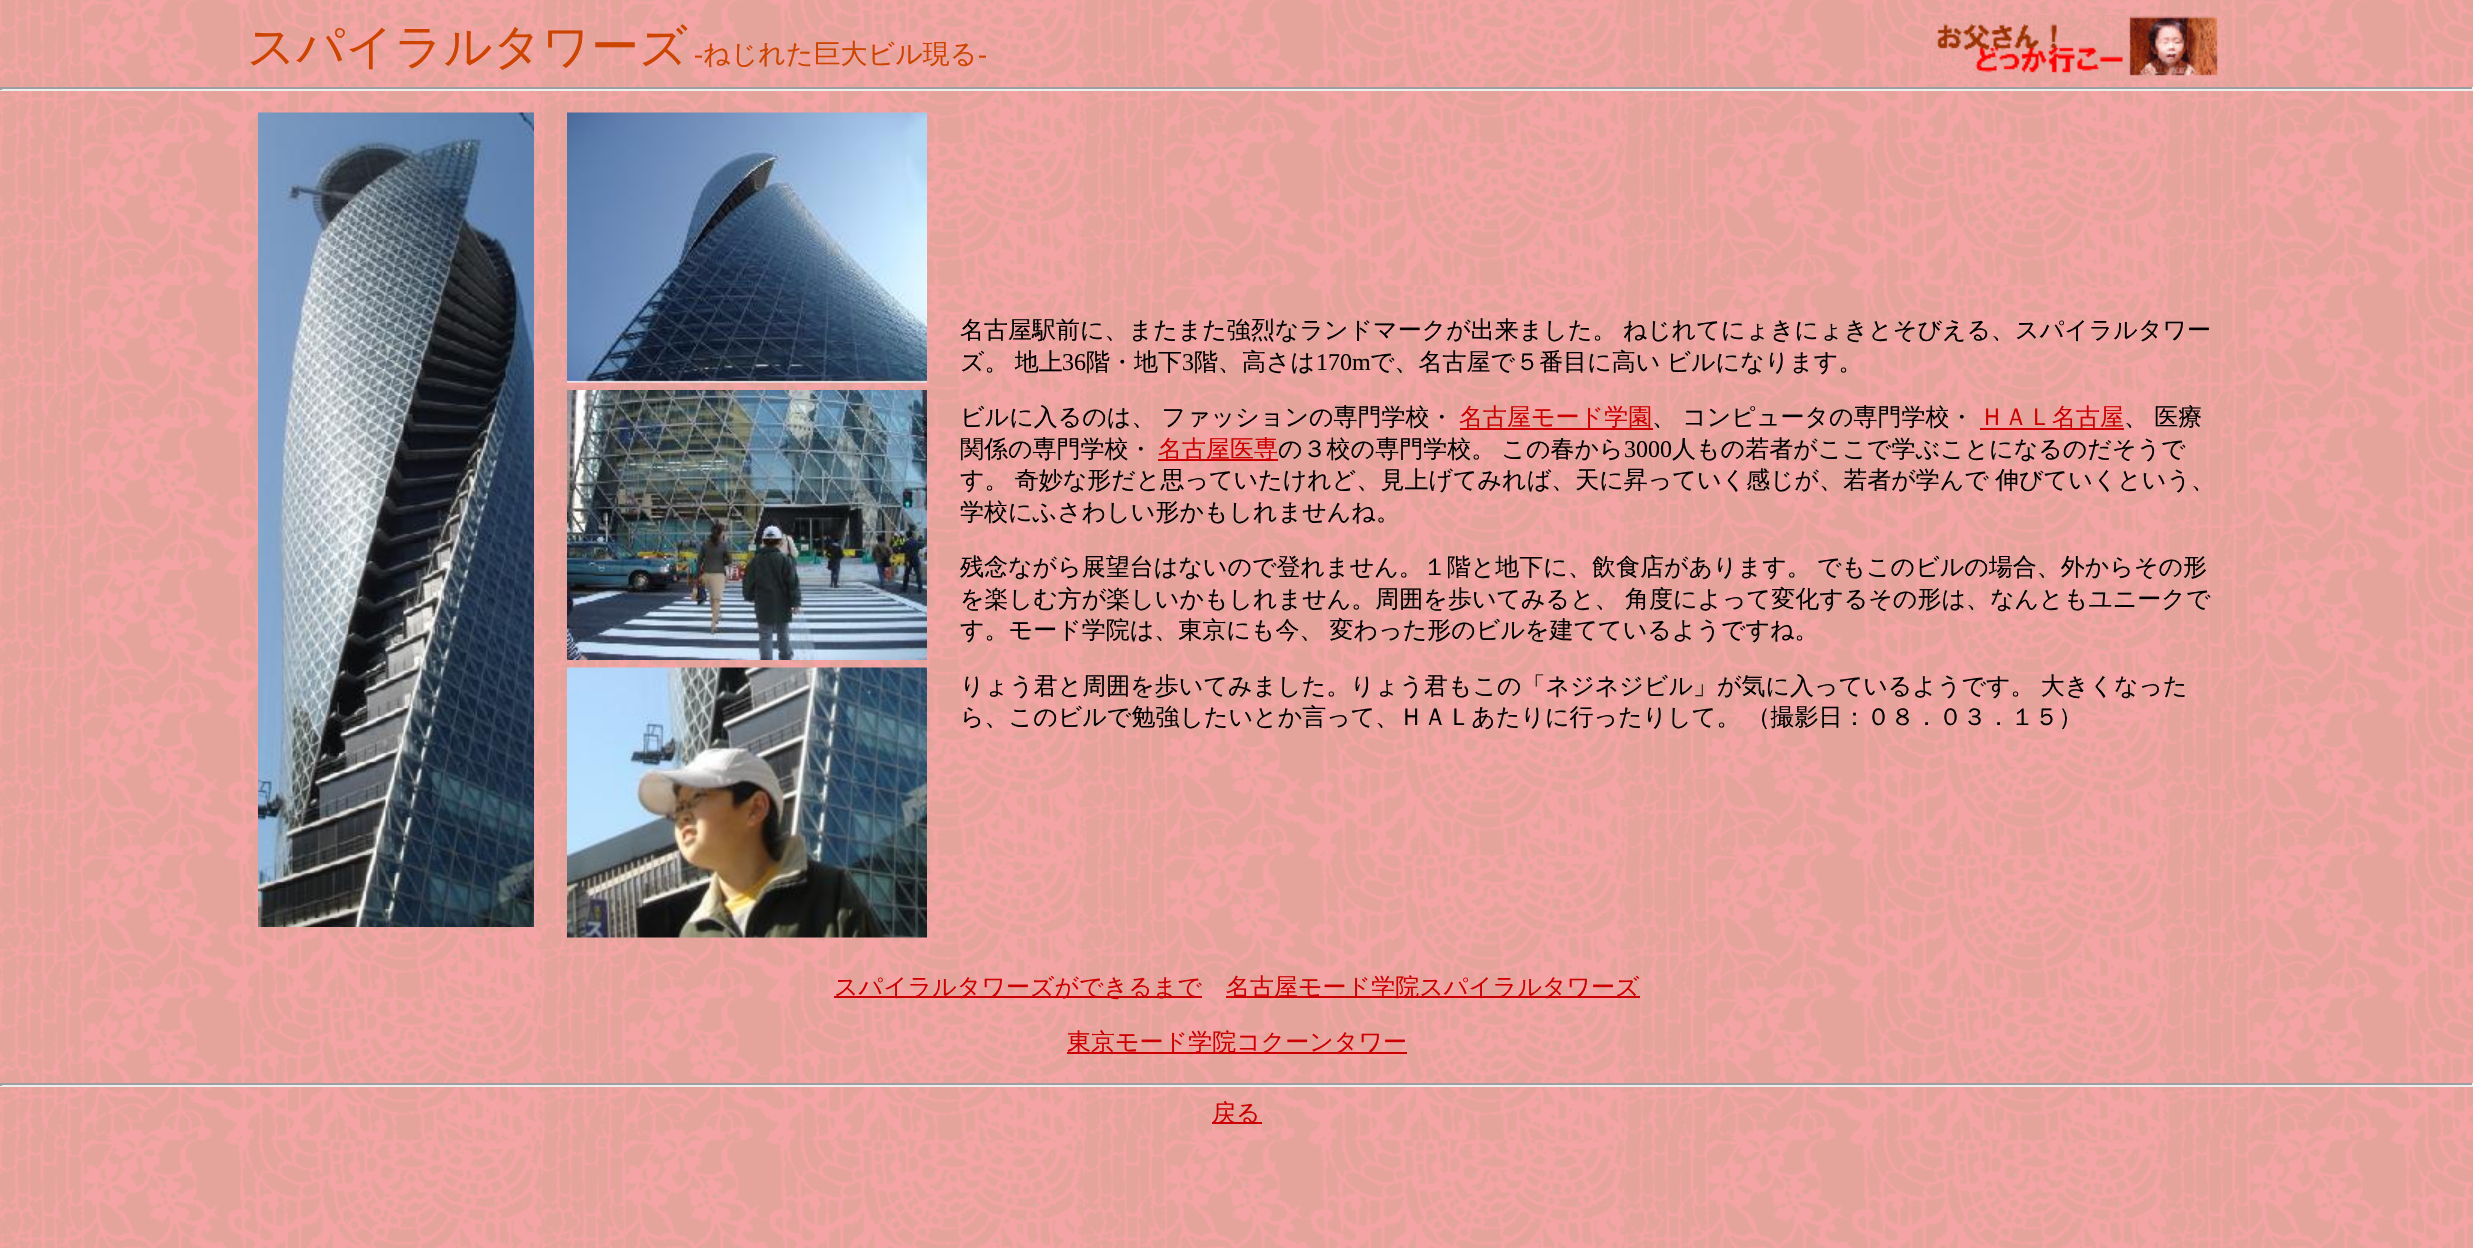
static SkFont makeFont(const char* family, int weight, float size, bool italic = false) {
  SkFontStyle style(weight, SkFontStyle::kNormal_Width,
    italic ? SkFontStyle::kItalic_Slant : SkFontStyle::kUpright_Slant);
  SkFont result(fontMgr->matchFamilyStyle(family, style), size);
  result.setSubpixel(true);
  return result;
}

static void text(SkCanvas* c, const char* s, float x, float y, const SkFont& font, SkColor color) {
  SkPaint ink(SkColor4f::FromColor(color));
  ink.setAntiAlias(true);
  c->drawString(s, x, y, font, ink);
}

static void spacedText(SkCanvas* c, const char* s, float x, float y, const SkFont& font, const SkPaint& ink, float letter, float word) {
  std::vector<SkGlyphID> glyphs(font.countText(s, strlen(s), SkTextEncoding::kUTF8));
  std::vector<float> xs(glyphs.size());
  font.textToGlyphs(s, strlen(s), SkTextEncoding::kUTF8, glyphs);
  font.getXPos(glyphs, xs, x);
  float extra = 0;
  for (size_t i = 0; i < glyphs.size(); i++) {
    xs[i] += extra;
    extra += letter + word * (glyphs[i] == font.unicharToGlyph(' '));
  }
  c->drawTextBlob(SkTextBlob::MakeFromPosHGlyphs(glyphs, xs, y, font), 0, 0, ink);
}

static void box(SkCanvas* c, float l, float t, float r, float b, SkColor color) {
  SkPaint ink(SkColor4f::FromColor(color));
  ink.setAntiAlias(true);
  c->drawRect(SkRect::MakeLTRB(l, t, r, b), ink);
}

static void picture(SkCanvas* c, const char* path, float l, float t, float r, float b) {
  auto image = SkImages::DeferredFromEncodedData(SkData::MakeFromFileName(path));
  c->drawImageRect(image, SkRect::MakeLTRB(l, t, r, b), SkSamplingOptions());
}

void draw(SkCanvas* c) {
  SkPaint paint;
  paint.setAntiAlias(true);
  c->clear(0xffffffff);
  picture(c, "img_01.png", 0, 0, 2473, 1248);
  SkFont face1 = makeFont("WenQuanYi Zen Hei", 500, 48);
  text(c, "スパイラルタワーズ", 247, 63, face1, 0xffcc4400);
  SkFont face2 = makeFont("Liberation Serif", 400, 27);
  text(c, "-", 694, 63, face2, 0xffcc4400);
  SkFont face3 = makeFont("WenQuanYi Zen Hei", 500, 27);
  text(c, "ねじれた巨大ビル現る", 703, 63, face3, 0xffcc4400);
  text(c, "-", 978, 63, face2, 0xffcc4400);
  picture(c, "img_02.png", 1927, 15, 2226, 81);
  box(c, 0, 87, 2473, 89, 0xff9f9f9f);
  box(c, 2472, 87, 2473, 90, 0xffeeeeee);
  box(c, 0, 89, 2473, 91, 0xffeeeeee);
  box(c, 0, 87, 2, 90, 0xff9f9f9f);
  picture(c, "img_03.png", 258, 112, 534, 927);
  picture(c, "img_04.png", 567, 112, 927, 383);
  picture(c, "img_05.png", 567, 390, 927, 660);
  picture(c, "img_06.png", 567, 667, 927, 938);
  SkFont face4 = makeFont("WenQuanYi Zen Hei", 500, 24);
  paint.setColor(0xff000000);
  spacedText(c, "名古屋駅前に、またまた強烈なランドマークが出来ました。 ねじれてにょきにょきとそびえる、スパイラルタワー", 960, 338, face4, paint, 0, -1);
  spacedText(c, "ズ。 地上", 960, 370, face4, paint, 0, -1);
  SkFont face5 = makeFont("Liberation Serif", 400, 24);
  text(c, "36", 1062, 370, face5, 0xff000000);
  text(c, "階・地下", 1086, 370, face4, 0xff000000);
  text(c, "3", 1182, 370, face5, 0xff000000);
  text(c, "階、高さは", 1194, 370, face4, 0xff000000);
  text(c, "170m", 1316, 370, face5, 0xff000000);
  spacedText(c, "で、名古屋で５番目に高い ビルになります。", 1370, 370, face4, paint, 0, -1);
  spacedText(c, "ビルに入るのは、 ファッションの専門学校・", 960, 425, face4, paint, 0, -1);
  box(c, 1460, 428, 1653, 430, 0xffcc0000);
  text(c, "名古屋モード学園", 1459, 425, face4, 0xffcc0000);
  spacedText(c, "、 コンピュータの専門学校・", 1652, 425, face4, paint, 0, -1);
  text(c, "ＨＡＬ名古屋", 1980, 425, face4, 0xffcc0000);
  box(c, 1980, 428, 2124, 430, 0xffcc0000);
  spacedText(c, "、 医療", 2124, 425, face4, paint, 0, -1);
  text(c, "関係の専門学校・", 960, 457, face4, 0xff000000);
  box(c, 1158, 459, 1278, 461, 0xffcc0000);
  text(c, "名古屋医専", 1158, 457, face4, 0xffcc0000);
  spacedText(c, "の３校の専門学校。 この春から", 1278, 457, face4, paint, 0, -1);
  text(c, "3000", 1624, 457, face5, 0xff000000);
  text(c, "人もの若者がここで学ぶことになるのだそうで", 1672, 457, face4, 0xff000000);
  spacedText(c, "す。 奇妙な形だと思っていたけれど、見上げてみれば、天に昇っていく感じが、若者が学んで 伸びていくという、", 960, 488, face4, paint, 0, -1);
  text(c, "学校にふさわしい形かもしれませんね。", 960, 520, face4, 0xff000000);
  spacedText(c, "残念ながら展望台はないので登れません。１階と地下に、飲食店があります。 でもこのビルの場合、外からその形", 960, 575, face4, paint, 0, -1);
  spacedText(c, "を楽しむ方が楽しいかもしれません。周囲を歩いてみると、 角度によって変化するその形は、なんともユニークで", 960, 607, face4, paint, 0, -1);
  spacedText(c, "す。モード学院は、東京にも今、 変わった形のビルを建てているようですね。", 960, 638, face4, paint, 0, -1);
  spacedText(c, "りょう君と周囲を歩いてみました。りょう君もこの「ネジネジビル」が気に入っているようです。 大きくなった", 960, 694, face4, paint, 0, -1);
  spacedText(c, "ら、このビルで勉強したいとか言って、ＨＡＬあたりに行ったりして。 （撮影日：０８．０３．１５）", 960, 725, face4, paint, 0, -1);
  box(c, 834, 996, 1202, 998, 0xffcc0000);
  text(c, "スパイラルタワーズができるまで", 834, 995, face4, 0xffcc0000);
  box(c, 1226, 996, 1640, 998, 0xffcc0000);
  text(c, "名古屋モード学院スパイラルタワーズ", 1226, 995, face4, 0xffcc0000);
  box(c, 1067, 1052, 1407, 1054, 0xffcc0000);
  text(c, "東京モード学院コクーンタワー", 1067, 1050, face4, 0xffcc0000);
  box(c, 0, 1083, 2473, 1085, 0xff9f9f9f);
  box(c, 2472, 1083, 2473, 1086, 0xffeeeeee);
  box(c, 0, 1085, 2473, 1087, 0xffeeeeee);
  box(c, 0, 1083, 2, 1086, 0xff9f9f9f);
  box(c, 1212, 1122, 1262, 1124, 0xffcc0000);
  text(c, "戻る", 1212, 1121, face4, 0xffcc0000);
}
